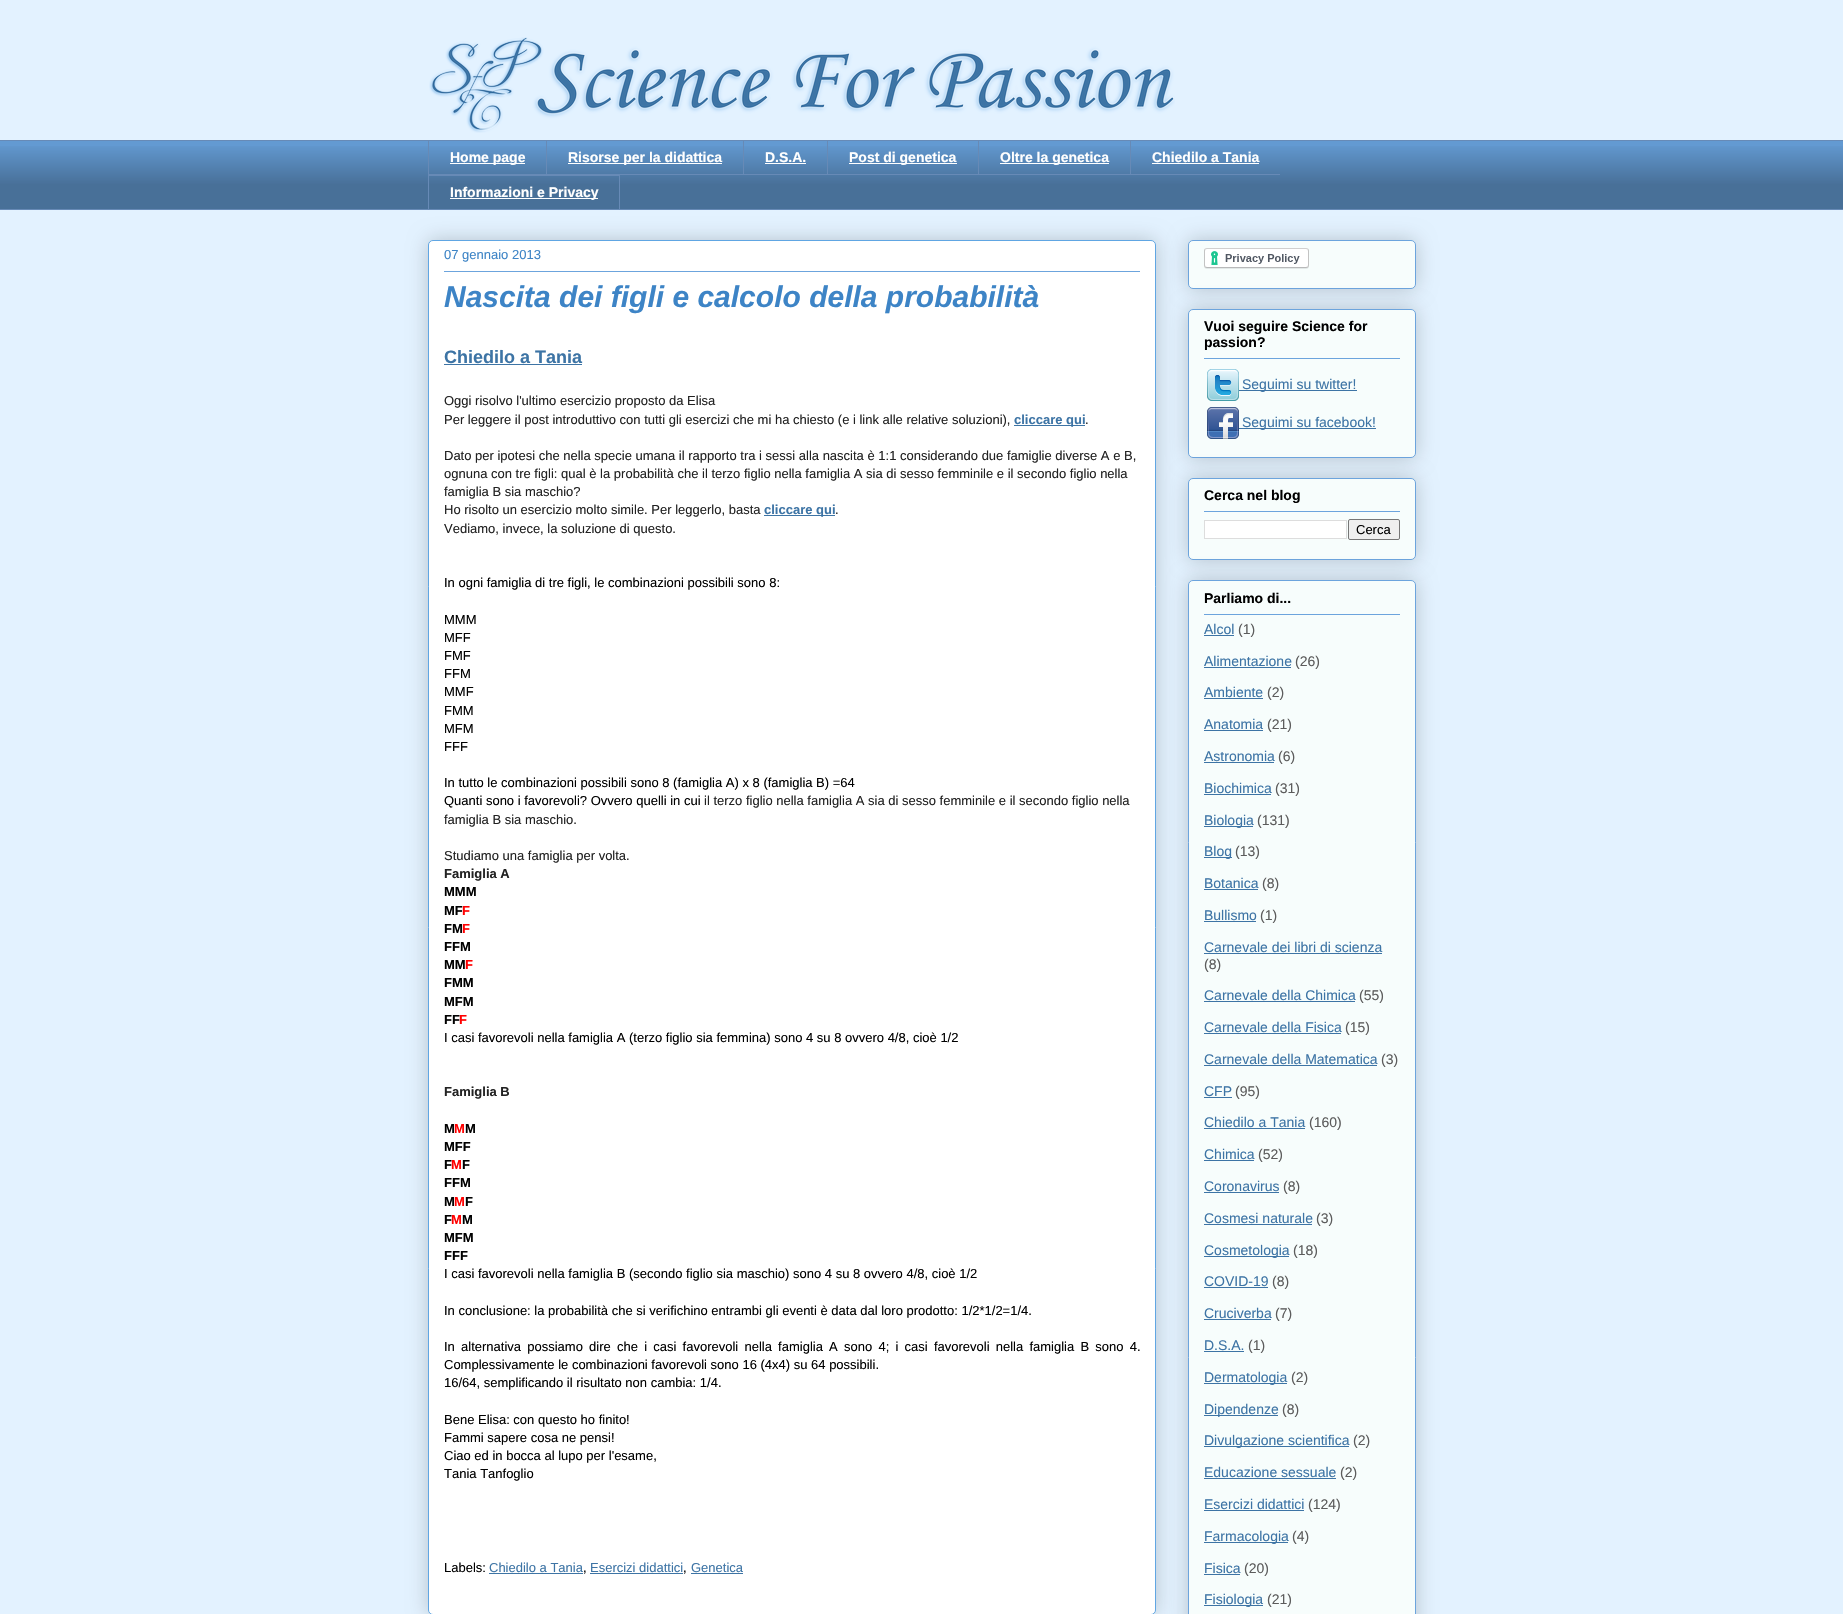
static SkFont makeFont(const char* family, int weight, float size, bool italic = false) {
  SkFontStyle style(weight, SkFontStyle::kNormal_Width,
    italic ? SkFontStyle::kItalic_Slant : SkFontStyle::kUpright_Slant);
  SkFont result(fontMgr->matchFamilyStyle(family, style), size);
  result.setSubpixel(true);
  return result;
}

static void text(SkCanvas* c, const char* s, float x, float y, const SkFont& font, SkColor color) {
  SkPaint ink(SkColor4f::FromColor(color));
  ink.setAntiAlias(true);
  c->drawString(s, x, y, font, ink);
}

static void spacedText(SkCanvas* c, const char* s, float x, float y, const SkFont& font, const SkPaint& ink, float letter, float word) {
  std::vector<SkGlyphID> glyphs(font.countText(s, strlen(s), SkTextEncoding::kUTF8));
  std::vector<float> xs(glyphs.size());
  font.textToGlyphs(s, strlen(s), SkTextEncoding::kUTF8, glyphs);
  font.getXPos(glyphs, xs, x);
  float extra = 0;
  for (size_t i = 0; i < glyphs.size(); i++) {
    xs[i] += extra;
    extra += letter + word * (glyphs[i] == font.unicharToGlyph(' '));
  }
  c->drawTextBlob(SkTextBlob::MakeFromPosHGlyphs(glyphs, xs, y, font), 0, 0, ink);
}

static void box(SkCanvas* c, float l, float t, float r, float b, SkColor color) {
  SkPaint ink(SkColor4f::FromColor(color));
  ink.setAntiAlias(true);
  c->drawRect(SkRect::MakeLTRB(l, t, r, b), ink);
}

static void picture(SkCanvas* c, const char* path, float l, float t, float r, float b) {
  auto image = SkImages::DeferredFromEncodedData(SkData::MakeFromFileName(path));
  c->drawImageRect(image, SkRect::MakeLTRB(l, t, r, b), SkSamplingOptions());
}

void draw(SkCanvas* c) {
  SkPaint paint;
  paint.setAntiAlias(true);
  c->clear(0xffe3f2ff);
  picture(c, "img_01.png", 429, 37, 1175, 133);
  box(c, 0, 141, 1843, 209, 0xff639ad2);
  picture(c, "img_02.png", 0, 146, 1843, 209);
  box(c, 0, 140, 1843, 141, 0xff678ab6);
  box(c, 428, 174, 1280, 175, 0xff678ab6);
  box(c, 428, 140, 429, 175, 0xff678ab6);
  box(c, 450, 163, 525, 164, 0xffffffff);
  SkFont face1 = makeFont("Liberation Sans", 700, 14);
  text(c, "Home page", 450, 162, face1, 0xffffffff);
  box(c, 546, 140, 547, 175, 0xff678ab6);
  box(c, 568, 163, 722, 164, 0xffffffff);
  text(c, "Risorse per la didattica", 568, 162, face1, 0xffffffff);
  box(c, 743, 140, 744, 175, 0xff678ab6);
  text(c, "D.S.A.", 765, 162, face1, 0xffffffff);
  box(c, 765, 163, 806, 164, 0xffffffff);
  box(c, 827, 140, 828, 175, 0xff678ab6);
  box(c, 849, 163, 957, 164, 0xffffffff);
  text(c, "Post di genetica", 849, 162, face1, 0xffffffff);
  box(c, 978, 140, 979, 175, 0xff678ab6);
  box(c, 1000, 163, 1109, 164, 0xffffffff);
  text(c, "Oltre la genetica", 1000, 162, face1, 0xffffffff);
  box(c, 1130, 140, 1131, 175, 0xff678ab6);
  text(c, "Chiedilo a Tania", 1152, 162, face1, 0xffffffff);
  box(c, 1152, 163, 1259, 164, 0xffffffff);
  paint.setStyle(SkPaint::kStroke_Style);
  paint.setStrokeWidth(1);
  paint.setColor(0xff678ab6);
  c->drawRect(SkRect::MakeLTRB(428.5f, 175.5f, 619.5f, 209.5f), paint);
  box(c, 450, 198, 598, 199, 0xffffffff);
  text(c, "Informazioni e Privacy", 450, 197, face1, 0xffffffff);
  box(c, 0, 209, 1843, 210, 0xff678ab6);
  paint.setStyle(SkPaint::kFill_Style);
  paint.setColor(0x33000000);
  paint.setMaskFilter(SkMaskFilter::MakeBlur(kNormal_SkBlurStyle, 10));
  c->drawRoundRect(SkRect::MakeLTRB(428, 240, 1156, 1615), 5, 5, paint);
  paint.setMaskFilter(nullptr);
  paint.setColor(0xffffffff);
  c->drawRoundRect(SkRect::MakeLTRB(428.5f, 240.5f, 1155.5f, 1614.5f), 4.5f, 4.5f, paint);
  paint.setStyle(SkPaint::kStroke_Style);
  paint.setColor(0xff60a6e3);
  c->drawRoundRect(SkRect::MakeLTRB(428.5f, 240.5f, 1155.5f, 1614.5f), 4.5f, 4.5f, paint);
  SkFont face2 = makeFont("Liberation Sans", 400, 13);
  text(c, "07 gennaio 2013", 444, 259, face2, 0xff3d84c6);
  box(c, 444, 271, 1140, 272, 0xff6ca4dd);
  SkFont face3 = makeFont("Liberation Sans", 700, 30, true);
  text(c, "Nascita dei figli e calcolo della probabilità", 444, 307, face3, 0xff3d84c6);
  SkFont face4 = makeFont("Liberation Sans", 700, 18);
  text(c, "Chiedilo a Tania", 444, 363, face4, 0xff3d74a5);
  box(c, 444, 364, 582, 365, 0xff3d74a5);
  text(c, "Oggi risolvo l'ultimo esercizio proposto da Elisa", 444, 405, face2, 0xff222222);
  text(c, "Per leggere il post introduttivo con tutti gli esercizi che mi ha chiesto (e i link alle relative soluzioni),", 444, 424, face2, 0xff222222);
  box(c, 1014, 425, 1085, 426, 0xff3d74a5);
  SkFont face5 = makeFont("Liberation Sans", 700, 13);
  text(c, "cliccare qui", 1014, 424, face5, 0xff3d74a5);
  text(c, ".", 1085, 424, face2, 0xff222222);
  text(c, "Dato per ipotesi che nella specie umana il rapporto tra i sessi alla nascita è 1:1 considerando due famiglie diverse A e B,", 444, 460, face2, 0xff222222);
  text(c, "ognuna con tre figli: qual è la probabilità che il terzo figlio nella famiglia A sia di sesso femminile e il secondo figlio nella", 444, 478, face2, 0xff222222);
  text(c, "famiglia B sia maschio?", 444, 496, face2, 0xff222222);
  text(c, "Ho risolto un esercizio molto simile. Per leggerlo, basta", 444, 514, face2, 0xff222222);
  box(c, 764, 515, 835, 516, 0xff3d74a5);
  text(c, "cliccare qui", 764, 514, face5, 0xff3d74a5);
  text(c, ".", 835, 514, face2, 0xff222222);
  text(c, "Vediamo, invece, la soluzione di questo.", 444, 533, face2, 0xff222222);
  text(c, "In ogni famiglia di tre figli, le combinazioni possibili sono 8:", 444, 587, face2, 0xff000000);
  text(c, "MMM", 444, 624, face2, 0xff000000);
  text(c, "MFF", 444, 642, face2, 0xff000000);
  text(c, "FMF", 444, 660, face2, 0xff000000);
  text(c, "FFM", 444, 678, face2, 0xff000000);
  text(c, "MMF", 444, 696, face2, 0xff000000);
  text(c, "FMM", 444, 715, face2, 0xff000000);
  text(c, "MFM", 444, 733, face2, 0xff000000);
  text(c, "FFF", 444, 751, face2, 0xff000000);
  text(c, "In tutto le combinazioni possibili sono 8 (famiglia A) x 8 (famiglia B) =64", 444, 787, face2, 0xff000000);
  text(c, "Quanti sono i favorevoli? Ovvero quelli in cui", 444, 805, face2, 0xff000000);
  text(c, "il terzo figlio nella famiglia A sia di sesso femminile e il secondo figlio nella", 704, 805, face2, 0xff222222);
  text(c, "famiglia B sia maschio.", 444, 824, face2, 0xff222222);
  text(c, "Studiamo una famiglia per volta.", 444, 860, face2, 0xff222222);
  text(c, "Famiglia A", 444, 878, face5, 0xff222222);
  text(c, "MMM", 444, 896, face5, 0xff000000);
  text(c, "MF", 444, 915, face5, 0xff000000);
  text(c, "F", 462, 915, face5, 0xffff0000);
  text(c, "FM", 444, 933, face5, 0xff000000);
  text(c, "F", 462, 933, face5, 0xffff0000);
  text(c, "FFM", 444, 951, face5, 0xff000000);
  text(c, "MM", 444, 969, face5, 0xff000000);
  text(c, "F", 465, 969, face5, 0xffff0000);
  text(c, "FMM", 444, 987, face5, 0xff000000);
  text(c, "MFM", 444, 1006, face5, 0xff000000);
  text(c, "FF", 444, 1024, face5, 0xff000000);
  text(c, "F", 459, 1024, face5, 0xffff0000);
  text(c, "I casi favorevoli nella famiglia A (terzo figlio sia femmina) sono 4 su 8 ovvero 4/8, cioè 1/2", 444, 1042, face2, 0xff000000);
  text(c, "Famiglia B", 444, 1096, face5, 0xff222222);
  text(c, "M", 444, 1133, face5, 0xff000000);
  text(c, "M", 454, 1133, face5, 0xffff0000);
  text(c, "M", 465, 1133, face5, 0xff000000);
  text(c, "MFF", 444, 1151, face5, 0xff000000);
  text(c, "F", 444, 1169, face5, 0xff000000);
  text(c, "M", 451, 1169, face5, 0xffff0000);
  text(c, "F", 462, 1169, face5, 0xff000000);
  text(c, "FFM", 444, 1187, face5, 0xff000000);
  text(c, "M", 444, 1206, face5, 0xff000000);
  text(c, "M", 454, 1206, face5, 0xffff0000);
  text(c, "F", 465, 1206, face5, 0xff000000);
  text(c, "F", 444, 1224, face5, 0xff000000);
  text(c, "M", 451, 1224, face5, 0xffff0000);
  text(c, "M", 462, 1224, face5, 0xff000000);
  text(c, "MFM", 444, 1242, face5, 0xff000000);
  text(c, "FFF", 444, 1260, face5, 0xff000000);
  text(c, "I casi favorevoli nella famiglia B (secondo figlio sia maschio) sono 4 su 8 ovvero 4/8, cioè 1/2", 444, 1278, face2, 0xff000000);
  text(c, "In conclusione: la probabilità che si verifichino entrambi gli eventi è data dal loro prodotto: 1/2*1/2=1/4.", 444, 1315, face2, 0xff000000);
  paint.setStyle(SkPaint::kFill_Style);
  paint.setColor(0xff000000);
  spacedText(c, "In alternativa possiamo dire che i casi favorevoli nella famiglia A sono 4; i casi favorevoli nella famiglia B sono 4.", 444, 1351, face2, paint, 0, 2.6f);
  text(c, "Complessivamente le combinazioni favorevoli sono 16 (4x4) su 64 possibili.", 444, 1369, face2, 0xff000000);
  text(c, "16/64, semplificando il risultato non cambia: 1/4.", 444, 1387, face2, 0xff000000);
  text(c, "Bene Elisa: con questo ho finito!", 444, 1424, face2, 0xff000000);
  text(c, "Fammi sapere cosa ne pensi!", 444, 1442, face2, 0xff000000);
  text(c, "Ciao ed in bocca al lupo per l'esame,", 444, 1460, face2, 0xff000000);
  text(c, "Tania Tanfoglio", 444, 1478, face2, 0xff000000);
  text(c, "Labels:", 444, 1572, face2, 0xff000000);
  text(c, "Chiedilo a Tania", 489, 1572, face2, 0xff3d74a5);
  text(c, ",", 583, 1572, face2, 0xff000000);
  box(c, 489, 1573, 583, 1574, 0xff3d74a5);
  text(c, "Esercizi didattici", 590, 1572, face2, 0xff3d74a5);
  text(c, ",", 683, 1572, face2, 0xff000000);
  box(c, 590, 1573, 683, 1574, 0xff3d74a5);
  box(c, 691, 1573, 743, 1574, 0xff3d74a5);
  text(c, "Genetica", 691, 1572, face2, 0xff3d74a5);
  paint.setColor(0x33000000);
  paint.setMaskFilter(SkMaskFilter::MakeBlur(kNormal_SkBlurStyle, 10));
  c->drawRoundRect(SkRect::MakeLTRB(1188, 240, 1416, 289), 5, 5, paint);
  paint.setMaskFilter(nullptr);
  paint.setColor(0xfff7fdfc);
  c->drawRoundRect(SkRect::MakeLTRB(1188.5f, 240.5f, 1415.5f, 288.5f), 4.5f, 4.5f, paint);
  paint.setStyle(SkPaint::kStroke_Style);
  paint.setColor(0xff6ca4dd);
  c->drawRoundRect(SkRect::MakeLTRB(1188.5f, 240.5f, 1415.5f, 288.5f), 4.5f, 4.5f, paint);
  picture(c, "img_03.png", 1204, 248, 1309, 269);
  paint.setStyle(SkPaint::kFill_Style);
  paint.setColor(0x33000000);
  paint.setMaskFilter(SkMaskFilter::MakeBlur(kNormal_SkBlurStyle, 10));
  c->drawRoundRect(SkRect::MakeLTRB(1188, 309, 1416, 458), 5, 5, paint);
  paint.setMaskFilter(nullptr);
  paint.setColor(0xfff7fdfc);
  c->drawRoundRect(SkRect::MakeLTRB(1188.5f, 309.5f, 1415.5f, 457.5f), 4.5f, 4.5f, paint);
  paint.setStyle(SkPaint::kStroke_Style);
  paint.setColor(0xff6ca4dd);
  c->drawRoundRect(SkRect::MakeLTRB(1188.5f, 309.5f, 1415.5f, 457.5f), 4.5f, 4.5f, paint);
  text(c, "Vuoi seguire Science for", 1204, 331, face1, 0xff000000);
  text(c, "passion?", 1204, 347, face1, 0xff000000);
  box(c, 1204, 358, 1400, 359, 0xff6ca4dd);
  picture(c, "img_04.png", 1207, 369, 1239, 401);
  box(c, 1239, 390, 1357, 391, 0xff3d74a5);
  SkFont face6 = makeFont("Liberation Sans", 400, 14);
  text(c, "Seguimi su twitter!", 1242, 389, face6, 0xff3d74a5);
  picture(c, "img_05.png", 1207, 407, 1239, 439);
  box(c, 1239, 428, 1376, 429, 0xff3d74a5);
  text(c, "Seguimi su facebook!", 1242, 427, face6, 0xff3d74a5);
  paint.setStyle(SkPaint::kFill_Style);
  paint.setColor(0x33000000);
  paint.setMaskFilter(SkMaskFilter::MakeBlur(kNormal_SkBlurStyle, 10));
  c->drawRoundRect(SkRect::MakeLTRB(1188, 478, 1416, 560), 5, 5, paint);
  paint.setMaskFilter(nullptr);
  paint.setColor(0xfff7fdfc);
  c->drawRoundRect(SkRect::MakeLTRB(1188.5f, 478.5f, 1415.5f, 559.5f), 4.5f, 4.5f, paint);
  paint.setStyle(SkPaint::kStroke_Style);
  paint.setColor(0xff6ca4dd);
  c->drawRoundRect(SkRect::MakeLTRB(1188.5f, 478.5f, 1415.5f, 559.5f), 4.5f, 4.5f, paint);
  text(c, "Cerca nel blog", 1204, 500, face1, 0xff000000);
  box(c, 1204, 511, 1400, 512, 0xff6ca4dd);
  paint.setStyle(SkPaint::kFill_Style);
  paint.setColor(0xffffffff);
  c->drawRect(SkRect::MakeLTRB(1204.5f, 520.5f, 1346.5f, 538.5f), paint);
  paint.setStyle(SkPaint::kStroke_Style);
  paint.setColor(0xffdddddd);
  c->drawRect(SkRect::MakeLTRB(1204.5f, 520.5f, 1346.5f, 538.5f), paint);
  paint.setStyle(SkPaint::kFill_Style);
  paint.setColor(0xffefefef);
  c->drawRoundRect(SkRect::MakeLTRB(1348.5f, 519.5f, 1399.5f, 539.5f), 1.5f, 1.5f, paint);
  paint.setStyle(SkPaint::kStroke_Style);
  paint.setColor(0xff767676);
  c->drawRoundRect(SkRect::MakeLTRB(1348.5f, 519.5f, 1399.5f, 539.5f), 1.5f, 1.5f, paint);
  text(c, "Cerca", 1356, 534, face2, 0xff000000);
  paint.setStyle(SkPaint::kFill_Style);
  paint.setColor(0x33000000);
  paint.setMaskFilter(SkMaskFilter::MakeBlur(kNormal_SkBlurStyle, 10));
  c->drawRoundRect(SkRect::MakeLTRB(1188, 580, 1416, 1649), 5, 5, paint);
  paint.setMaskFilter(nullptr);
  paint.setColor(0xfff7fdfc);
  c->drawRoundRect(SkRect::MakeLTRB(1188.5f, 580.5f, 1415.5f, 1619.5f), 4.5f, 4.5f, paint);
  paint.setStyle(SkPaint::kStroke_Style);
  paint.setColor(0xff6ca4dd);
  c->drawRoundRect(SkRect::MakeLTRB(1188.5f, 580.5f, 1415.5f, 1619.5f), 4.5f, 4.5f, paint);
  text(c, "Parliamo di...", 1204, 603, face1, 0xff000000);
  box(c, 1204, 614, 1400, 615, 0xff6ca4dd);
  text(c, "Alcol", 1204, 634, face6, 0xff3d74a5);
  box(c, 1204, 635, 1234, 636, 0xff3d74a5);
  text(c, "(1)", 1238, 634, face6, 0xff5c5c5c);
  text(c, "Alimentazione", 1204, 666, face6, 0xff3d74a5);
  box(c, 1204, 667, 1291, 668, 0xff3d74a5);
  text(c, "(26)", 1295, 666, face6, 0xff5c5c5c);
  text(c, "Ambiente", 1204, 697, face6, 0xff3d74a5);
  box(c, 1204, 698, 1263, 699, 0xff3d74a5);
  text(c, "(2)", 1267, 697, face6, 0xff5c5c5c);
  text(c, "Anatomia", 1204, 729, face6, 0xff3d74a5);
  box(c, 1204, 730, 1263, 731, 0xff3d74a5);
  text(c, "(21)", 1267, 729, face6, 0xff5c5c5c);
  text(c, "Astronomia", 1204, 761, face6, 0xff3d74a5);
  box(c, 1204, 762, 1274, 763, 0xff3d74a5);
  text(c, "(6)", 1278, 761, face6, 0xff5c5c5c);
  text(c, "Biochimica", 1204, 793, face6, 0xff3d74a5);
  box(c, 1204, 794, 1271, 795, 0xff3d74a5);
  text(c, "(31)", 1275, 793, face6, 0xff5c5c5c);
  box(c, 1204, 826, 1253, 827, 0xff3d74a5);
  text(c, "Biologia", 1204, 825, face6, 0xff3d74a5);
  text(c, "(131)", 1257, 825, face6, 0xff5c5c5c);
  box(c, 1204, 857, 1232, 858, 0xff3d74a5);
  text(c, "Blog", 1204, 856, face6, 0xff3d74a5);
  text(c, "(13)", 1235, 856, face6, 0xff5c5c5c);
  text(c, "Botanica", 1204, 888, face6, 0xff3d74a5);
  box(c, 1204, 889, 1258, 890, 0xff3d74a5);
  text(c, "(8)", 1262, 888, face6, 0xff5c5c5c);
  text(c, "Bullismo", 1204, 920, face6, 0xff3d74a5);
  box(c, 1204, 921, 1256, 922, 0xff3d74a5);
  text(c, "(1)", 1260, 920, face6, 0xff5c5c5c);
  text(c, "Carnevale dei libri di scienza", 1204, 952, face6, 0xff3d74a5);
  box(c, 1204, 953, 1382, 954, 0xff3d74a5);
  text(c, "(8)", 1204, 969, face6, 0xff5c5c5c);
  text(c, "Carnevale della Chimica", 1204, 1000, face6, 0xff3d74a5);
  box(c, 1204, 1001, 1355, 1002, 0xff3d74a5);
  text(c, "(55)", 1359, 1000, face6, 0xff5c5c5c);
  text(c, "Carnevale della Fisica", 1204, 1032, face6, 0xff3d74a5);
  box(c, 1204, 1033, 1341, 1034, 0xff3d74a5);
  text(c, "(15)", 1345, 1032, face6, 0xff5c5c5c);
  text(c, "Carnevale della Matematica", 1204, 1064, face6, 0xff3d74a5);
  box(c, 1204, 1065, 1377, 1066, 0xff3d74a5);
  text(c, "(3)", 1381, 1064, face6, 0xff5c5c5c);
  text(c, "CFP", 1204, 1096, face6, 0xff3d74a5);
  box(c, 1204, 1097, 1232, 1098, 0xff3d74a5);
  text(c, "(95)", 1235, 1096, face6, 0xff5c5c5c);
  text(c, "Chiedilo a Tania", 1204, 1127, face6, 0xff3d74a5);
  box(c, 1204, 1128, 1305, 1129, 0xff3d74a5);
  text(c, "(160)", 1309, 1127, face6, 0xff5c5c5c);
  text(c, "Chimica", 1204, 1159, face6, 0xff3d74a5);
  box(c, 1204, 1160, 1254, 1161, 0xff3d74a5);
  text(c, "(52)", 1258, 1159, face6, 0xff5c5c5c);
  text(c, "Coronavirus", 1204, 1191, face6, 0xff3d74a5);
  box(c, 1204, 1192, 1279, 1193, 0xff3d74a5);
  text(c, "(8)", 1283, 1191, face6, 0xff5c5c5c);
  text(c, "Cosmesi naturale", 1204, 1223, face6, 0xff3d74a5);
  box(c, 1204, 1224, 1312, 1225, 0xff3d74a5);
  text(c, "(3)", 1316, 1223, face6, 0xff5c5c5c);
  box(c, 1204, 1256, 1289, 1257, 0xff3d74a5);
  text(c, "Cosmetologia", 1204, 1255, face6, 0xff3d74a5);
  text(c, "(18)", 1293, 1255, face6, 0xff5c5c5c);
  text(c, "COVID-19", 1204, 1286, face6, 0xff3d74a5);
  box(c, 1204, 1287, 1268, 1288, 0xff3d74a5);
  text(c, "(8)", 1272, 1286, face6, 0xff5c5c5c);
  text(c, "Cruciverba", 1204, 1318, face6, 0xff3d74a5);
  box(c, 1204, 1319, 1271, 1320, 0xff3d74a5);
  text(c, "(7)", 1275, 1318, face6, 0xff5c5c5c);
  text(c, "D.S.A.", 1204, 1350, face6, 0xff3d74a5);
  box(c, 1204, 1351, 1244, 1352, 0xff3d74a5);
  text(c, "(1)", 1248, 1350, face6, 0xff5c5c5c);
  box(c, 1204, 1383, 1287, 1384, 0xff3d74a5);
  text(c, "Dermatologia", 1204, 1382, face6, 0xff3d74a5);
  text(c, "(2)", 1291, 1382, face6, 0xff5c5c5c);
  box(c, 1204, 1415, 1278, 1416, 0xff3d74a5);
  text(c, "Dipendenze", 1204, 1414, face6, 0xff3d74a5);
  text(c, "(8)", 1282, 1414, face6, 0xff5c5c5c);
  box(c, 1204, 1446, 1349, 1447, 0xff3d74a5);
  text(c, "Divulgazione scientifica", 1204, 1445, face6, 0xff3d74a5);
  text(c, "(2)", 1353, 1445, face6, 0xff5c5c5c);
  text(c, "Educazione sessuale", 1204, 1477, face6, 0xff3d74a5);
  box(c, 1204, 1478, 1336, 1479, 0xff3d74a5);
  text(c, "(2)", 1340, 1477, face6, 0xff5c5c5c);
  text(c, "Esercizi didattici", 1204, 1509, face6, 0xff3d74a5);
  box(c, 1204, 1510, 1304, 1511, 0xff3d74a5);
  text(c, "(124)", 1308, 1509, face6, 0xff5c5c5c);
  box(c, 1204, 1542, 1288, 1543, 0xff3d74a5);
  text(c, "Farmacologia", 1204, 1541, face6, 0xff3d74a5);
  text(c, "(4)", 1292, 1541, face6, 0xff5c5c5c);
  text(c, "Fisica", 1204, 1573, face6, 0xff3d74a5);
  box(c, 1204, 1574, 1240, 1575, 0xff3d74a5);
  text(c, "(20)", 1244, 1573, face6, 0xff5c5c5c);
  box(c, 1204, 1605, 1263, 1606, 0xff3d74a5);
  text(c, "Fisiologia", 1204, 1604, face6, 0xff3d74a5);
  text(c, "(21)", 1267, 1604, face6, 0xff5c5c5c);
}
